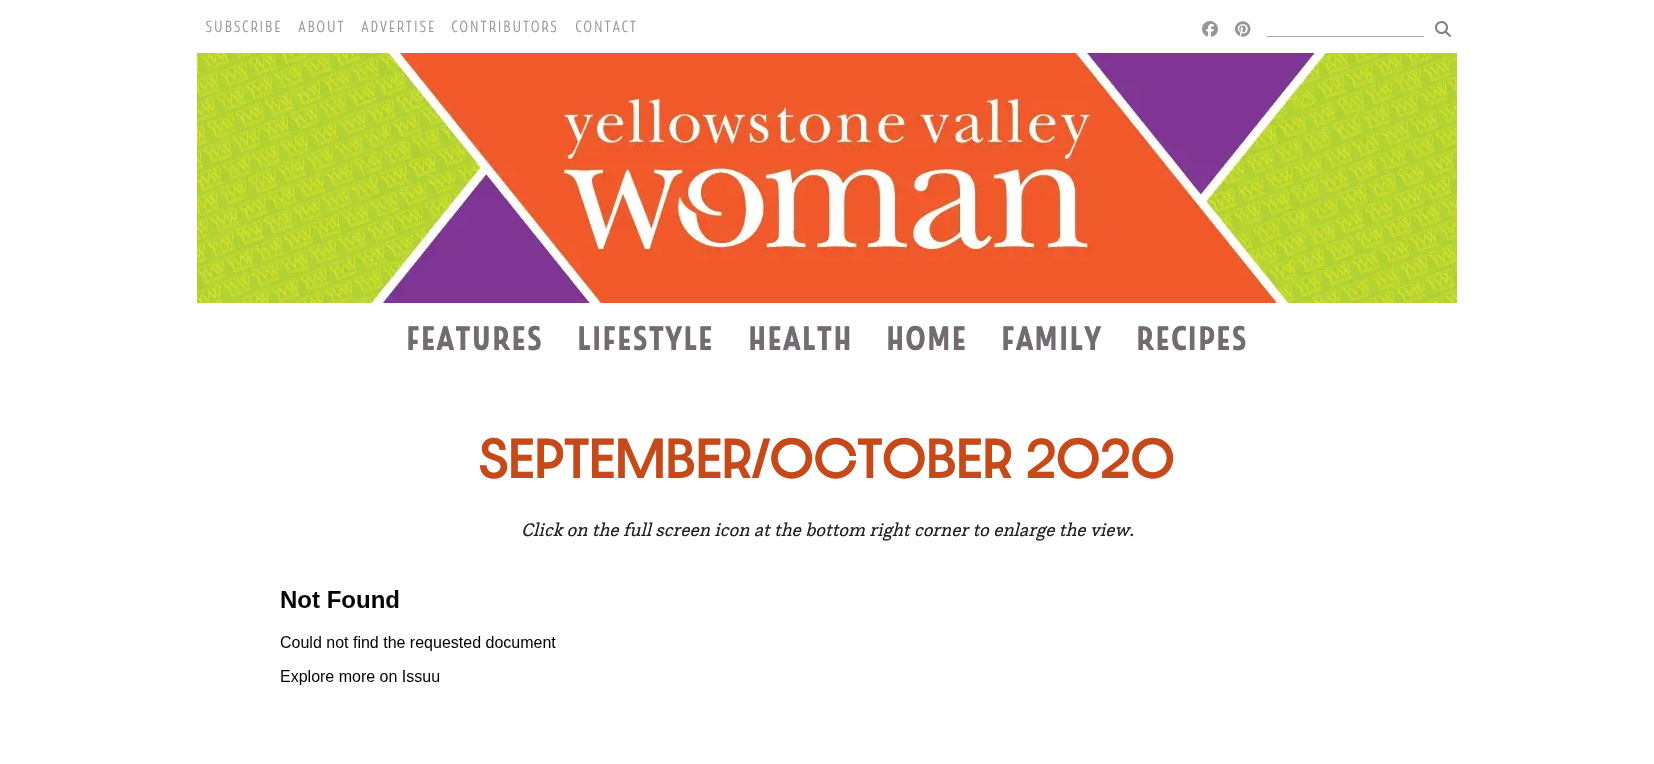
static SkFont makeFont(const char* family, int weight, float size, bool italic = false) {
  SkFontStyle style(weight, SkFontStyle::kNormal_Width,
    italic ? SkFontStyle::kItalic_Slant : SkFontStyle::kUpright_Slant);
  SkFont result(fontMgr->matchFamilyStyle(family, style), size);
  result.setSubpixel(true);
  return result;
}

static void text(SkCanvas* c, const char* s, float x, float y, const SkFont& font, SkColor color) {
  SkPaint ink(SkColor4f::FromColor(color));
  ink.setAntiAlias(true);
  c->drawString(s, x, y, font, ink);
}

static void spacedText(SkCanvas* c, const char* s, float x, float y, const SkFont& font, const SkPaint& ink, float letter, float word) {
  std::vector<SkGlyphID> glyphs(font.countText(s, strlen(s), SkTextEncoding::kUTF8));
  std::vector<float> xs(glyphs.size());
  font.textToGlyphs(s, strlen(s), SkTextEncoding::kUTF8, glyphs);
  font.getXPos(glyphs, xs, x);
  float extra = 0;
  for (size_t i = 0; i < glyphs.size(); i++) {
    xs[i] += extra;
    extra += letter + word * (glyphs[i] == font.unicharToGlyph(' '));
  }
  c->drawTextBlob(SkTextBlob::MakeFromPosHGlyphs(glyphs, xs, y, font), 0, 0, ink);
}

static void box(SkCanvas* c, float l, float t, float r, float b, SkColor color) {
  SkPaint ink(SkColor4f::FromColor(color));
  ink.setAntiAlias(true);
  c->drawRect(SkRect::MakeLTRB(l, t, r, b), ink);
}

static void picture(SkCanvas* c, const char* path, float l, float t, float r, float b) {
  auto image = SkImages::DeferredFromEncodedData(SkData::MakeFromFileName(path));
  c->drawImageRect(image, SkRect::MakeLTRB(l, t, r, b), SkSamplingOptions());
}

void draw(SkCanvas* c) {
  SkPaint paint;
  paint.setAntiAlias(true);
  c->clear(0xffffffff);
  SkFont face1 = makeFont("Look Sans", 300, 16);
  paint.setColor(0xff979795);
  spacedText(c, "SUBSCRIBE", 205, 32, face1, paint, 1, 0);
  spacedText(c, "ABOUT", 298, 32, face1, paint, 1, 0);
  spacedText(c, "ADVERTISE", 361, 32, face1, paint, 1, 0);
  spacedText(c, "CONTRIBUTORS", 451, 32, face1, paint, 1, 0);
  spacedText(c, "CONTACT", 575, 32, face1, paint, 1, 0);
  picture(c, "img_01.png", 1202, 21, 1218, 37);
  picture(c, "img_02.png", 1235, 21, 1251, 37);
  box(c, 1267, 36, 1424, 37, 0xffaaaaaa);
  picture(c, "img_03.png", 1435, 21, 1451, 37);
  picture(c, "img_04.png", 197, 53, 1457, 303);
  SkFont face2 = makeFont("Look Sans", 700, 34);
  paint.setColor(0xff736b72);
  spacedText(c, "FEATURES", 406, 350, face2, paint, 1, 0);
  spacedText(c, "LIFESTYLE", 577, 350, face2, paint, 1, 0);
  spacedText(c, "HEALTH", 748, 350, face2, paint, 1, 0);
  spacedText(c, "HOME", 886, 350, face2, paint, 1, 0);
  spacedText(c, "FAMILY", 1001, 350, face2, paint, 1, 0);
  spacedText(c, "RECIPES", 1136, 350, face2, paint, 1, 0);
  SkFont face3 = makeFont("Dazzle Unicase", 500, 48);
  text(c, "SEPTEMBER/OCTOBER 2020", 479, 478, face3, 0xffc6491a);
  SkFont face4 = makeFont("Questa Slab", 400, 18.9f, true);
  text(c, "Click on the full screen icon at the bottom right corner to enlarge the view.", 521, 536, face4, 0xff212121);
  picture(c, "img_05.png", 280, 590, 556, 685);
}
